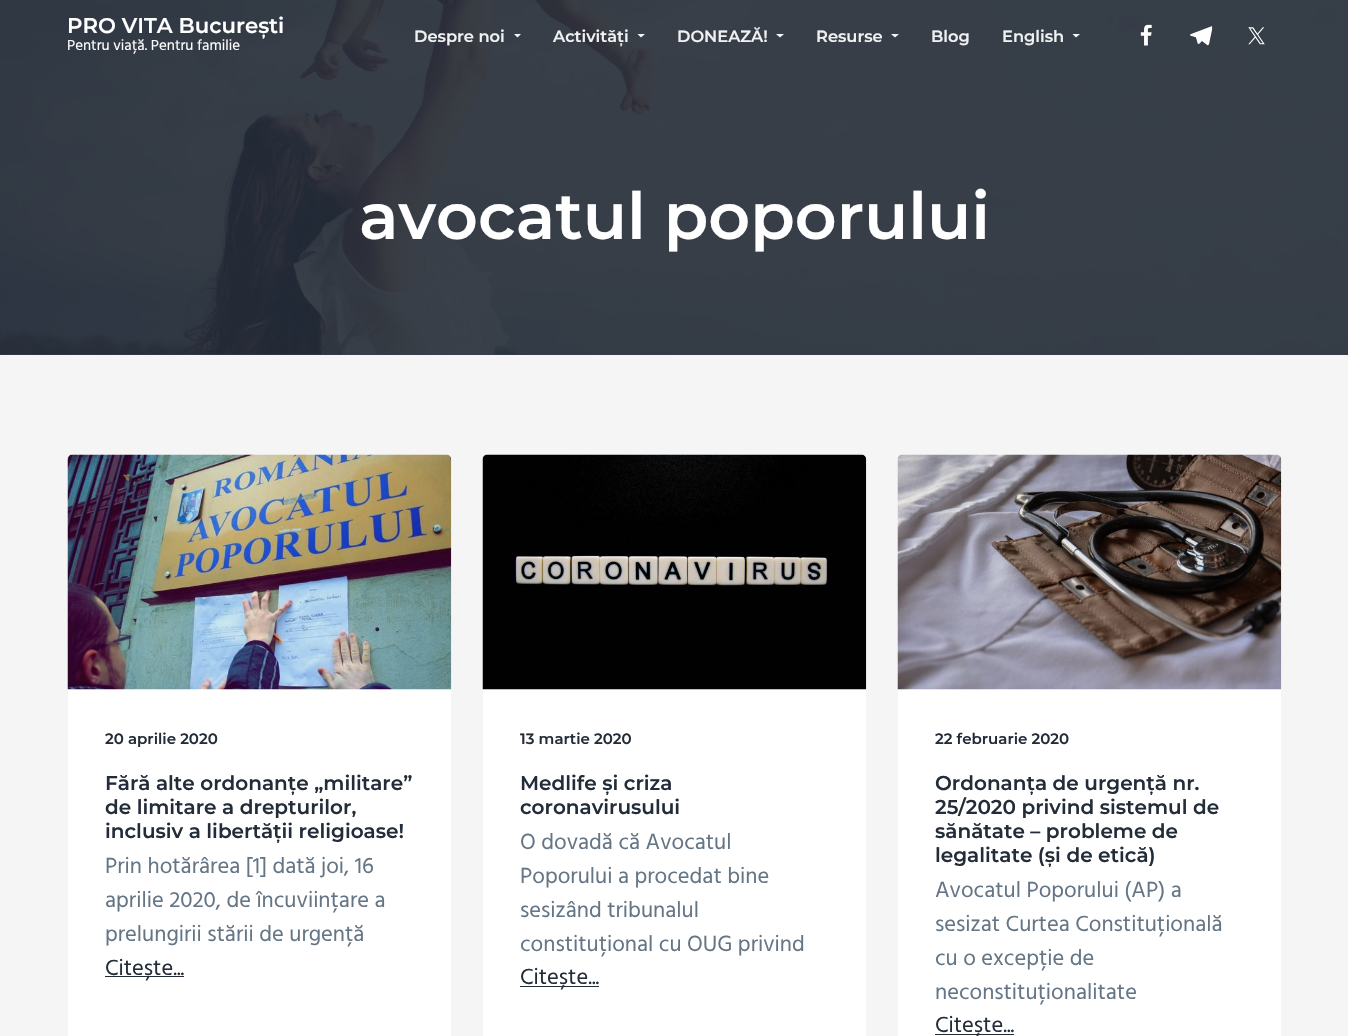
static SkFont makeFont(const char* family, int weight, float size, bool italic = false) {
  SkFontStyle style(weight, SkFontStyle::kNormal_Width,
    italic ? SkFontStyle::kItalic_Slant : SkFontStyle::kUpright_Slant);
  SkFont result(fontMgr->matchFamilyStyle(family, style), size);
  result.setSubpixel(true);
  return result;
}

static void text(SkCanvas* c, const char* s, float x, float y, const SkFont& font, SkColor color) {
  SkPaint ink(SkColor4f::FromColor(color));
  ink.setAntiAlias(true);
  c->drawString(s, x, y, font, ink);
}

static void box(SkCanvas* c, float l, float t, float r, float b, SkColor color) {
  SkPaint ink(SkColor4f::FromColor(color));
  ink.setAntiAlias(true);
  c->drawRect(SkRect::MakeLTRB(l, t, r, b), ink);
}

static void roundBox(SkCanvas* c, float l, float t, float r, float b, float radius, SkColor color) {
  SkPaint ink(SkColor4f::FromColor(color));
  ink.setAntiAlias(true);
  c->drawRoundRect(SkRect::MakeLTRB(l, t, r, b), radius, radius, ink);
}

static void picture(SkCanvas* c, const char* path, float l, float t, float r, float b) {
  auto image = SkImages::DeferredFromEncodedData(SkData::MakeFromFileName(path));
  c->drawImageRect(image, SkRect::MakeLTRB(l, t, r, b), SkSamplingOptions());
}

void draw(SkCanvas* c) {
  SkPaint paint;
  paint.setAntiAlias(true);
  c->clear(0xfff5f5f6);
  box(c, 0, 354, 1348, 355, 0xff38404c);
  picture(c, "img_04.png", 0, 0, 1348, 355);
  SkFont face1 = makeFont("Montserrat", 100, 21.25f);
  text(c, "PRO VITA București", 67, 33, face1, 0xffffffff);
  SkFont face2 = makeFont("Hind", 400, 15);
  text(c, "Pentru viață. Pentru familie", 67, 50, face2, 0xffffffff);
  SkFont face3 = makeFont("Montserrat", 100, 16.25f);
  text(c, "Despre noi", 414, 42, face3, 0xfff0f1f2);
  paint.setColor(0xfff6f7f8);
  c->drawPath(SkPathBuilder().moveTo(514, 34).lineTo(521, 34).lineTo(517.5f, 37.5f).close().detach(), paint);
  text(c, "Activități", 553, 42, face3, 0xfff0f1f2);
  c->drawPath(SkPathBuilder().moveTo(637.5f, 34).lineTo(645, 34).lineTo(641, 37.5f).close().detach(), paint);
  text(c, "DONEAZĂ!", 677, 42, face3, 0xfff0f1f2);
  c->drawPath(SkPathBuilder().moveTo(776, 34).lineTo(784, 34).lineTo(780, 37.5f).close().detach(), paint);
  text(c, "Resurse", 816, 42, face3, 0xfff0f1f2);
  c->drawPath(SkPathBuilder().moveTo(891, 34).lineTo(899, 34).lineTo(895, 37.5f).close().detach(), paint);
  text(c, "Blog", 931, 42, face3, 0xfff0f1f2);
  text(c, "English", 1002, 42, face3, 0xfff0f1f2);
  c->drawPath(SkPathBuilder().moveTo(1072.5f, 34).lineTo(1080, 34).lineTo(1076, 37.5f).close().detach(), paint);
  picture(c, "img_01.png", 1140, 24, 1152, 46);
  picture(c, "img_02.png", 1190, 26, 1213, 46);
  picture(c, "img_03.png", 1248, 27, 1265, 45);
  SkFont face4 = makeFont("Montserrat", 100, 65);
  text(c, "avocatul poporului", 359, 239, face4, 0xffffffff);
  roundBox(c, 68, 455, 451, 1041, 5, 0xffffffff);
  picture(c, "img_05.png", 67, 454, 452, 690);
  SkFont face5 = makeFont("Montserrat", 100, 15);
  text(c, "20 aprilie 2020", 105, 744, face5, 0xff232c39);
  SkFont face6 = makeFont("Montserrat", 100, 20);
  text(c, "Fără alte ordonanțe „militare”", 105, 790, face6, 0xff232c39);
  text(c, "de limitare a drepturilor,", 105, 814, face6, 0xff232c39);
  text(c, "inclusiv a libertății religioase!", 105, 838, face6, 0xff232c39);
  SkFont face7 = makeFont("Hind", 400, 22.5f);
  text(c, "Prin hotărârea [1] dată joi, 16", 105, 873, face7, 0xff647585);
  text(c, "aprilie 2020, de încuviințare a", 105, 907, face7, 0xff647585);
  text(c, "prelungirii stării de urgență", 105, 941, face7, 0xff647585);
  box(c, 105, 976, 184, 977, 0xff232c39);
  text(c, "Citește...", 105, 975, face7, 0xff232c39);
  roundBox(c, 483, 455, 866, 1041, 5, 0xffffffff);
  picture(c, "img_06.png", 482, 454, 867, 690);
  text(c, "13 martie 2020", 520, 744, face5, 0xff232c39);
  text(c, "Medlife și criza", 520, 790, face6, 0xff232c39);
  text(c, "coronavirusului", 520, 814, face6, 0xff232c39);
  text(c, "O dovadă că Avocatul", 520, 849, face7, 0xff647585);
  text(c, "Poporului a procedat bine", 520, 883, face7, 0xff647585);
  text(c, "sesizând tribunalul", 520, 917, face7, 0xff647585);
  text(c, "constituțional cu OUG privind", 520, 951, face7, 0xff647585);
  box(c, 520, 986, 599, 987, 0xff232c39);
  text(c, "Citește...", 520, 984, face7, 0xff232c39);
  roundBox(c, 898, 455, 1281, 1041, 5, 0xffffffff);
  picture(c, "img_07.png", 897, 454, 1282, 690);
  text(c, "22 februarie 2020", 935, 744, face5, 0xff232c39);
  text(c, "Ordonanța de urgență nr.", 935, 790, face6, 0xff232c39);
  text(c, "25/2020 privind sistemul de", 935, 814, face6, 0xff232c39);
  text(c, "sănătate – probleme de", 935, 838, face6, 0xff232c39);
  text(c, "legalitate (și de etică)", 935, 862, face6, 0xff232c39);
  text(c, "Avocatul Poporului (AP) a", 935, 897, face7, 0xff647585);
  text(c, "sesizat Curtea Constituțională", 935, 931, face7, 0xff647585);
  text(c, "cu o excepție de", 935, 965, face7, 0xff647585);
  text(c, "neconstituționalitate", 935, 999, face7, 0xff647585);
  box(c, 935, 1034, 1014, 1035, 0xff232c39);
  text(c, "Citește...", 935, 1032, face7, 0xff232c39);
}
